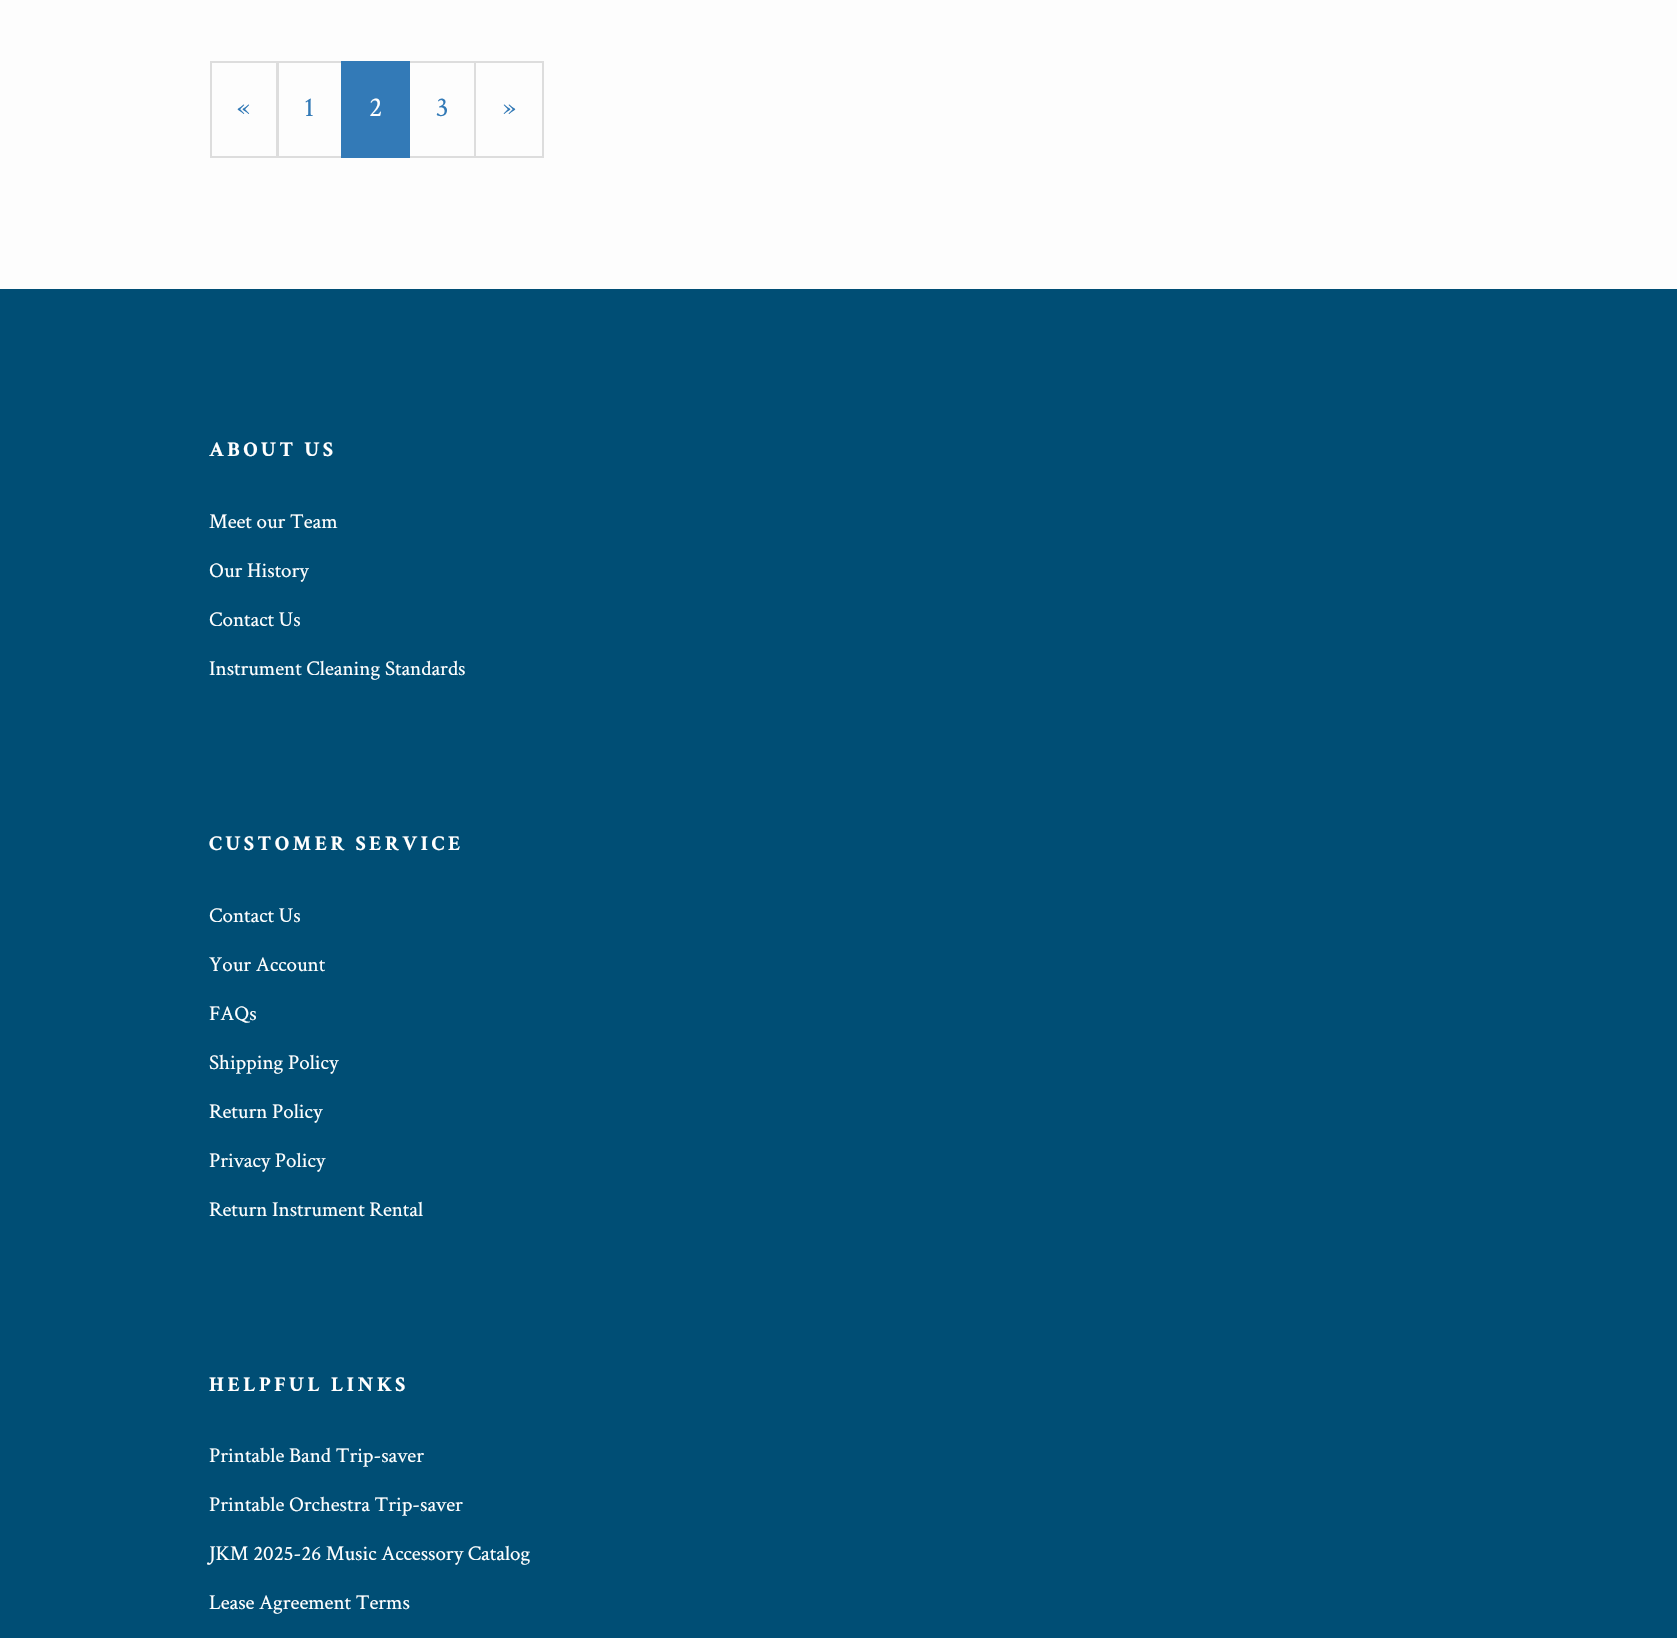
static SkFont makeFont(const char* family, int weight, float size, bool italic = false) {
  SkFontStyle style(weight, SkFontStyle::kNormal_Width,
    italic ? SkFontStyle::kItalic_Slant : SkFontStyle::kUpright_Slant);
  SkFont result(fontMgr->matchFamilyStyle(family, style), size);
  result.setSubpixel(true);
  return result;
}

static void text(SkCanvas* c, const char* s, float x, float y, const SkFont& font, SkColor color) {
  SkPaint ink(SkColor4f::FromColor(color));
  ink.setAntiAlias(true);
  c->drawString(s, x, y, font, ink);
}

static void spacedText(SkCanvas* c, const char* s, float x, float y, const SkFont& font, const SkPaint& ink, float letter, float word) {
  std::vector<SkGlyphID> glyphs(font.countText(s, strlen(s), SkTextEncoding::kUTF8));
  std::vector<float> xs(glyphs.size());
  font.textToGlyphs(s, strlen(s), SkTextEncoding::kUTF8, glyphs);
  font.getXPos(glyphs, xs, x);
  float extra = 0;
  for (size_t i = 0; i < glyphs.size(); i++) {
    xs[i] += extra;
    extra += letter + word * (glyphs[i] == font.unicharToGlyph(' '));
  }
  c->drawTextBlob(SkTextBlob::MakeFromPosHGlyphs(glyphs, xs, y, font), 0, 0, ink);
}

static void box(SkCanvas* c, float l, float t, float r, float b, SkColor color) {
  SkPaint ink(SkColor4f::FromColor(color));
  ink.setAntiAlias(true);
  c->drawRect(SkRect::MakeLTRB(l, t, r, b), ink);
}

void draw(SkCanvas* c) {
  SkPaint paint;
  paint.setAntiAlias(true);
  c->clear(0xfffdfdfd);
  paint.setStyle(SkPaint::kStroke_Style);
  paint.setStrokeWidth(2);
  paint.setColor(0xffdddddd);
  c->drawRect(SkRect::MakeLTRB(211, 62, 277, 157), paint);
  SkFont face1 = makeFont("Crimson Text", 400, 28);
  text(c, "«", 237, 116, face1, 0xff337ab7);
  c->drawRect(SkRect::MakeLTRB(278, 62, 342, 157), paint);
  text(c, "1", 304, 116, face1, 0xff337ab7);
  c->drawRect(SkRect::MakeLTRB(409, 62, 475, 157), paint);
  box(c, 341, 61, 410, 158, 0xff337ab7);
  text(c, "2", 369, 116, face1, 0xffffffff);
  text(c, "3", 436, 116, face1, 0xff337ab7);
  c->drawRect(SkRect::MakeLTRB(475, 62, 543, 157), paint);
  text(c, "»", 503, 116, face1, 0xff337ab7);
  box(c, 0, 289, 1677, 1638, 0xff004e75);
  SkFont face2 = makeFont("Crimson Text", 700, 21);
  paint.setStyle(SkPaint::kFill_Style);
  paint.setColor(0xffffffff);
  spacedText(c, "ABOUT US", 209, 456, face2, paint, 3.5f, 0);
  SkFont face3 = makeFont("Crimson Text", 400, 21);
  text(c, "Meet our Team", 209, 528, face3, 0xffffffff);
  text(c, "Our History", 209, 577, face3, 0xffffffff);
  text(c, "Contact Us", 209, 626, face3, 0xffffffff);
  text(c, "Instrument Cleaning Standards", 209, 675, face3, 0xffffffff);
  spacedText(c, "CUSTOMER SERVICE", 209, 850, face2, paint, 3.5f, 0);
  text(c, "Contact Us", 209, 922, face3, 0xffffffff);
  text(c, "Your Account", 209, 971, face3, 0xffffffff);
  text(c, "FAQs", 209, 1020, face3, 0xffffffff);
  text(c, "Shipping Policy", 209, 1069, face3, 0xffffffff);
  text(c, "Return Policy", 209, 1118, face3, 0xffffffff);
  text(c, "Privacy Policy", 209, 1167, face3, 0xffffffff);
  text(c, "Return Instrument Rental", 209, 1216, face3, 0xffffffff);
  spacedText(c, "HELPFUL LINKS", 209, 1391, face2, paint, 3.5f, 0);
  text(c, "Printable Band Trip-saver", 209, 1462, face3, 0xffffffff);
  text(c, "Printable Orchestra Trip-saver", 209, 1511, face3, 0xffffffff);
  text(c, "JKM 2025-26 Music Accessory Catalog", 209, 1560, face3, 0xffffffff);
  text(c, "Lease Agreement Terms", 209, 1609, face3, 0xffffffff);
}
